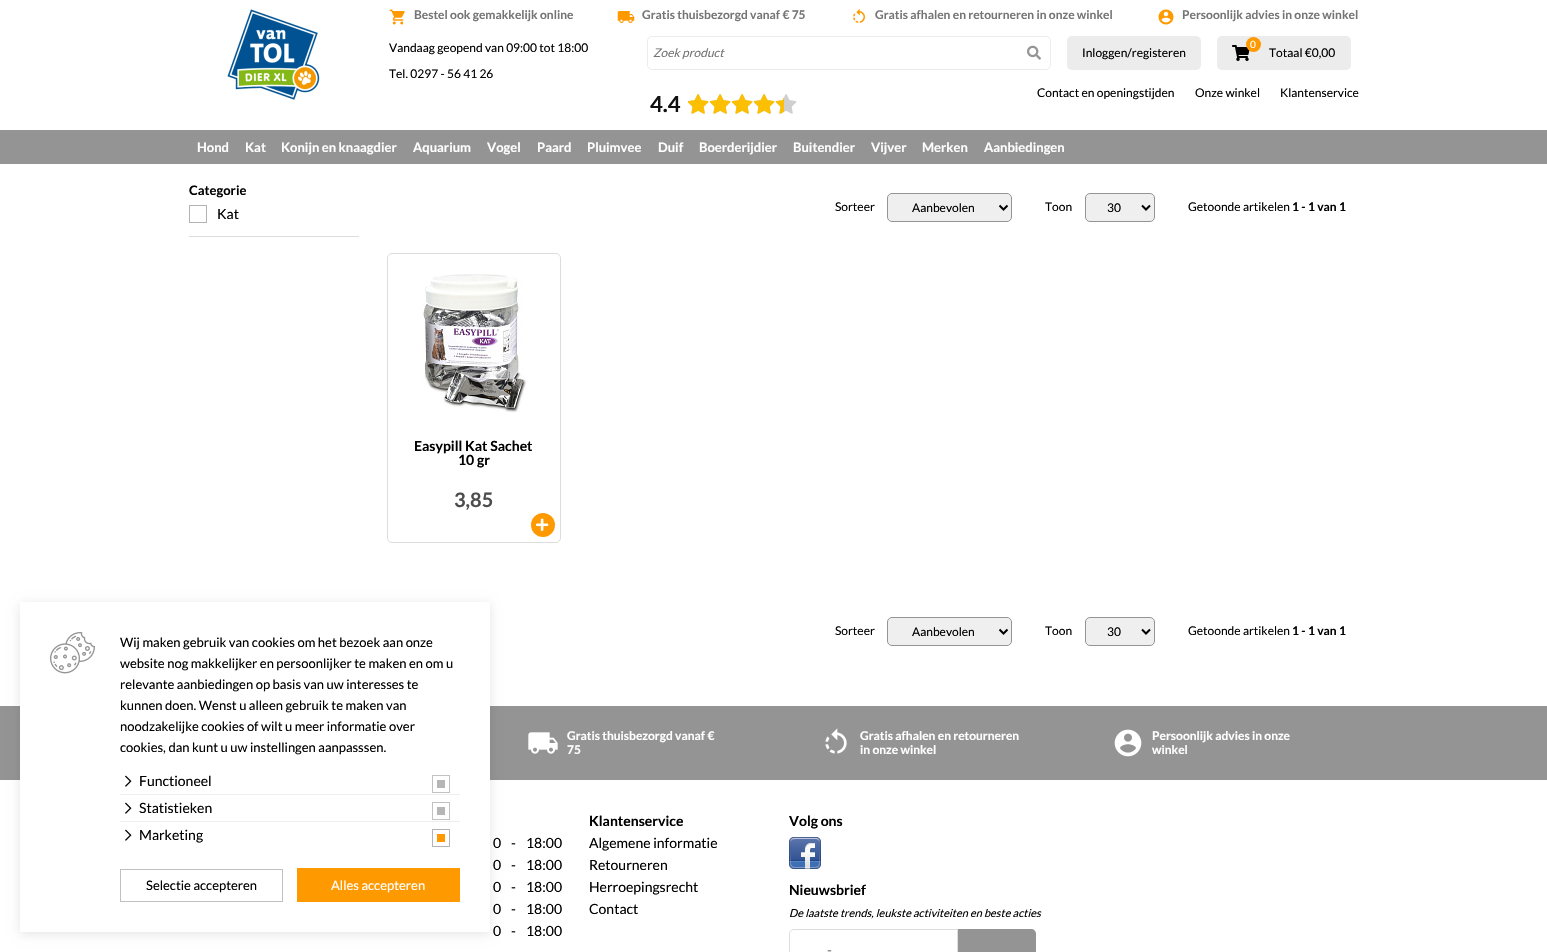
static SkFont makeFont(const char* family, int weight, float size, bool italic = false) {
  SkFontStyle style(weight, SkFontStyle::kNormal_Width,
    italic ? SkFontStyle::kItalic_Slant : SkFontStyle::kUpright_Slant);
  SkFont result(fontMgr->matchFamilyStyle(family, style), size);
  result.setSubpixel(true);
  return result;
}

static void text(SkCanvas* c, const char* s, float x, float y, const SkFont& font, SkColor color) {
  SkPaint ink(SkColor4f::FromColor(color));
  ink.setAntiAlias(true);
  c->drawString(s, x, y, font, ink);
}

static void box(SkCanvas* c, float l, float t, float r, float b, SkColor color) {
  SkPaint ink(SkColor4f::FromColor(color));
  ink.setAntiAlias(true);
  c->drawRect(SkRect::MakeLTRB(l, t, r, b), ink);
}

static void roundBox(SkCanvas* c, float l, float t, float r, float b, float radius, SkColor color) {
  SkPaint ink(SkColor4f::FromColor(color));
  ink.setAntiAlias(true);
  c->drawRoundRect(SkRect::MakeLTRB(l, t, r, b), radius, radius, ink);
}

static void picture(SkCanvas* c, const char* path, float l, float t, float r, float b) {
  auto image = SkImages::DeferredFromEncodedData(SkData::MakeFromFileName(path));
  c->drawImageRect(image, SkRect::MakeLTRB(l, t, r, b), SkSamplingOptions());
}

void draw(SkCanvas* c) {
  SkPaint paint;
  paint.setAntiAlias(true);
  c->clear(0xffffffff);
  picture(c, "img_01.png", 227, 9, 320, 100);
  picture(c, "img_02.png", 389, 9, 405, 25);
  SkFont face1 = makeFont("Lato", 700, 12);
  text(c, "Bestel ook gemakkelijk online", 414, 19, face1, 0xff757575);
  picture(c, "img_03.png", 617, 11, 635, 23);
  text(c, "Gratis thuisbezorgd vanaf € 75", 642, 19, face1, 0xff757575);
  picture(c, "img_04.png", 853, 8, 865, 23);
  text(c, "Gratis afhalen en retourneren in onze winkel", 875, 19, face1, 0xff757575);
  picture(c, "img_05.png", 1158, 9, 1174, 25);
  text(c, "Persoonlijk advies in onze winkel", 1182, 19, face1, 0xff757575);
  SkFont face2 = makeFont("Lato", 400, 12);
  text(c, "Vandaag geopend van 09:00 tot 18:00", 389, 52, face2, 0xff000000);
  text(c, "Tel. 0297 - 56 41 26", 389, 78, face2, 0xff000000);
  paint.setStyle(SkPaint::kStroke_Style);
  paint.setStrokeWidth(1);
  paint.setColor(0xffececec);
  c->drawRoundRect(SkRect::MakeLTRB(647.5f, 36.5f, 1050.5f, 69.5f), 4.5f, 4.5f, paint);
  SkFont face3 = makeFont("Lato", 400, 12, true);
  text(c, "Zoek product", 653, 57, face3, 0xff757575);
  picture(c, "img_06.png", 1027, 45, 1041, 60);
  roundBox(c, 1067, 36, 1201, 70, 5, 0xffececec);
  text(c, "Inloggen/registeren", 1082, 57, face2, 0xff000000);
  roundBox(c, 1217, 36, 1351, 70, 5, 0xffececec);
  picture(c, "img_07.png", 1232, 45, 1250, 61);
  paint.setStyle(SkPaint::kFill_Style);
  paint.setColor(0xffff9900);
  c->drawCircle(1253.5f, 44.5f, 7.5f, paint);
  SkFont face4 = makeFont("Lato", 400, 10);
  text(c, "0", 1250, 48, face4, 0xffffffff);
  text(c, "Totaal €0,00", 1269, 57, face2, 0xff000000);
  text(c, "Contact en openingstijden", 1037, 97, face2, 0xff000000);
  text(c, "Onze winkel", 1195, 97, face2, 0xff000000);
  text(c, "Klantenservice", 1280, 97, face2, 0xff000000);
  SkFont face5 = makeFont("Lato", 700, 22);
  text(c, "4.4", 650, 112, face5, 0xff111111);
  picture(c, "img_09.png", 688, 94, 709, 114);
  picture(c, "img_08.png", 687, 94, 709, 114);
  picture(c, "img_09.png", 710, 94, 731, 114);
  picture(c, "img_08.png", 709, 94, 731, 114);
  picture(c, "img_09.png", 732, 94, 753, 114);
  picture(c, "img_08.png", 731, 94, 753, 114);
  picture(c, "img_09.png", 754, 94, 775, 114);
  picture(c, "img_08.png", 753, 94, 775, 114);
  picture(c, "img_09.png", 776, 94, 797, 114);
  picture(c, "img_10.png", 775, 97, 784, 114);
  box(c, 0, 130, 1547, 164, 0xff949494);
  SkFont face6 = makeFont("Lato", 700, 13);
  text(c, "Hond", 197, 152, face6, 0xffffffff);
  text(c, "Kat", 245, 152, face6, 0xffffffff);
  text(c, "Konijn en knaagdier", 281, 152, face6, 0xffffffff);
  text(c, "Aquarium", 413, 152, face6, 0xffffffff);
  text(c, "Vogel", 487, 152, face6, 0xffffffff);
  text(c, "Paard", 537, 152, face6, 0xffffffff);
  text(c, "Pluimvee", 587, 152, face6, 0xffffffff);
  text(c, "Duif", 658, 152, face6, 0xffffffff);
  text(c, "Boerderijdier", 699, 152, face6, 0xffffffff);
  text(c, "Buitendier", 793, 152, face6, 0xffffffff);
  text(c, "Vijver", 871, 152, face6, 0xffffffff);
  text(c, "Merken", 922, 152, face6, 0xffffffff);
  text(c, "Aanbiedingen", 984, 152, face6, 0xffffffff);
  box(c, 189, 236, 359, 237, 0xffdddddd);
  text(c, "Categorie", 189, 195, face6, 0xff000000);
  paint.setStyle(SkPaint::kStroke_Style);
  paint.setColor(0xffb3b3b3);
  c->drawRect(SkRect::MakeLTRB(189.5f, 205.5f, 206.5f, 222.5f), paint);
  SkFont face7 = makeFont("Lato", 400, 14);
  text(c, "Kat", 217, 219, face7, 0xff000000);
  text(c, "Sorteer", 835, 211, face2, 0xff000000);
  paint.setStyle(SkPaint::kFill_Style);
  paint.setColor(0xffefefef);
  c->drawRoundRect(SkRect::MakeLTRB(887.5f, 193.5f, 1011.5f, 221.5f), 4.5f, 4.5f, paint);
  paint.setStyle(SkPaint::kStroke_Style);
  paint.setColor(0xff949494);
  c->drawRoundRect(SkRect::MakeLTRB(887.5f, 193.5f, 1011.5f, 221.5f), 4.5f, 4.5f, paint);
  paint.setStrokeWidth(2);
  paint.setColor(0xff000000);
  c->drawPath(SkPathBuilder().moveTo(999.5f, 205.5f).lineTo(1003.5f, 209.5f).lineTo(1007.5f, 205.5f).detach(), paint);
  text(c, "Aanbevolen", 912, 212, face2, 0xff000000);
  text(c, "Toon", 1045, 211, face2, 0xff000000);
  paint.setStyle(SkPaint::kFill_Style);
  paint.setColor(0xffefefef);
  c->drawRoundRect(SkRect::MakeLTRB(1085.5f, 193.5f, 1154.5f, 221.5f), 4.5f, 4.5f, paint);
  paint.setStyle(SkPaint::kStroke_Style);
  paint.setStrokeWidth(1);
  paint.setColor(0xff949494);
  c->drawRoundRect(SkRect::MakeLTRB(1085.5f, 193.5f, 1154.5f, 221.5f), 4.5f, 4.5f, paint);
  paint.setStrokeWidth(2);
  paint.setColor(0xff000000);
  c->drawPath(SkPathBuilder().moveTo(1142, 205.5f).lineTo(1146, 209.5f).lineTo(1150, 205.5f).detach(), paint);
  text(c, "30", 1107, 212, face2, 0xff000000);
  text(c, "Getoonde artikelen", 1188, 211, face2, 0xff000000);
  text(c, "1 - 1 van 1", 1292, 211, face1, 0xff000000);
  paint.setStrokeWidth(1);
  paint.setColor(0xffdddddd);
  c->drawRoundRect(SkRect::MakeLTRB(387.5f, 253.5f, 560.5f, 542.5f), 4.5f, 4.5f, paint);
  picture(c, "img_11.png", 421, 274, 527, 413);
  SkFont face8 = makeFont("Lato", 700, 14);
  text(c, "Easypill Kat Sachet", 414, 451, face8, 0xff000000);
  text(c, "10 gr", 458, 465, face8, 0xff000000);
  SkFont face9 = makeFont("Lato", 700, 20);
  text(c, "3,85", 454, 507, face9, 0xff4d4d4d);
  paint.setStyle(SkPaint::kFill_Style);
  paint.setColor(0xffff9900);
  c->drawCircle(543, 525, 12, paint);
  picture(c, "img_12.png", 536, 518, 549, 531);
  text(c, "Sorteer", 835, 635, face2, 0xff000000);
  paint.setColor(0xffefefef);
  c->drawRoundRect(SkRect::MakeLTRB(887.5f, 617.5f, 1011.5f, 645.5f), 4.5f, 4.5f, paint);
  paint.setStyle(SkPaint::kStroke_Style);
  paint.setColor(0xff949494);
  c->drawRoundRect(SkRect::MakeLTRB(887.5f, 617.5f, 1011.5f, 645.5f), 4.5f, 4.5f, paint);
  paint.setStrokeWidth(2);
  paint.setColor(0xff000000);
  c->drawPath(SkPathBuilder().moveTo(999.5f, 629.5f).lineTo(1003.5f, 633.5f).lineTo(1007.5f, 629.5f).detach(), paint);
  text(c, "Aanbevolen", 912, 636, face2, 0xff000000);
  text(c, "Toon", 1045, 635, face2, 0xff000000);
  paint.setStyle(SkPaint::kFill_Style);
  paint.setColor(0xffefefef);
  c->drawRoundRect(SkRect::MakeLTRB(1085.5f, 617.5f, 1154.5f, 645.5f), 4.5f, 4.5f, paint);
  paint.setStyle(SkPaint::kStroke_Style);
  paint.setStrokeWidth(1);
  paint.setColor(0xff949494);
  c->drawRoundRect(SkRect::MakeLTRB(1085.5f, 617.5f, 1154.5f, 645.5f), 4.5f, 4.5f, paint);
  paint.setStrokeWidth(2);
  paint.setColor(0xff000000);
  c->drawPath(SkPathBuilder().moveTo(1142, 629.5f).lineTo(1146, 633.5f).lineTo(1150, 629.5f).detach(), paint);
  text(c, "30", 1107, 636, face2, 0xff000000);
  text(c, "Getoonde artikelen", 1188, 635, face2, 0xff000000);
  text(c, "1 - 1 van 1", 1292, 635, face1, 0xff000000);
  box(c, 0, 706, 1547, 780, 0xff949494);
  picture(c, "img_13.png", 528, 732, 558, 754);
  text(c, "Gratis thuisbezorgd vanaf €", 567, 740, face1, 0xffffffff);
  text(c, "75", 567, 754, face1, 0xffffffff);
  picture(c, "img_14.png", 825, 728, 847, 754);
  text(c, "Gratis afhalen en retourneren", 860, 740, face1, 0xffffffff);
  text(c, "in onze winkel", 860, 754, face1, 0xffffffff);
  picture(c, "img_15.png", 1114, 729, 1142, 757);
  text(c, "Persoonlijk advies in onze", 1152, 740, face1, 0xffffffff);
  text(c, "winkel", 1152, 754, face1, 0xffffffff);
  text(c, "0", 493, 848, face7, 0xff000000);
  text(c, "-", 511, 848, face7, 0xff000000);
  text(c, "18:00", 526, 848, face7, 0xff000000);
  text(c, "0", 493, 870, face7, 0xff000000);
  text(c, "-", 511, 870, face7, 0xff000000);
  text(c, "18:00", 526, 870, face7, 0xff000000);
  text(c, "0", 493, 892, face7, 0xff000000);
  text(c, "-", 511, 892, face7, 0xff000000);
  text(c, "18:00", 526, 892, face7, 0xff000000);
  text(c, "0", 493, 914, face7, 0xff000000);
  text(c, "-", 511, 914, face7, 0xff000000);
  text(c, "18:00", 526, 914, face7, 0xff000000);
  text(c, "0", 493, 936, face7, 0xff000000);
  text(c, "-", 511, 936, face7, 0xff000000);
  text(c, "18:00", 526, 936, face7, 0xff000000);
  text(c, "Klantenservice", 589, 826, face8, 0xff000000);
  text(c, "Algemene informatie", 589, 848, face7, 0xff000000);
  text(c, "Retourneren", 589, 870, face7, 0xff000000);
  text(c, "Herroepingsrecht", 589, 892, face7, 0xff000000);
  text(c, "Contact", 589, 914, face7, 0xff000000);
  text(c, "Volg ons", 789, 826, face8, 0xff000000);
  picture(c, "img_16.png", 789, 837, 821, 869);
  text(c, "Nieuwsbrief", 789, 895, face8, 0xff000000);
  SkFont face10 = makeFont("Lato", 400, 11, true);
  text(c, "De laatste trends, leukste activiteiten en beste acties", 789, 917, face10, 0xff000000);
  paint.setStrokeWidth(1);
  paint.setColor(0xffdddddd);
  c->drawPath(SkPathBuilder().moveTo(794, 929.5f).lineTo(957.5f, 929.5f).lineTo(957.5f, 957.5f).lineTo(794, 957.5f).cubicTo(791.5f, 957.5f, 789.5f, 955.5f, 789.5f, 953).lineTo(789.5f, 934).cubicTo(789.5f, 931.5f, 791.5f, 929.5f, 794, 929.5f).close().detach(), paint);
  text(c, "-", 827, 955, face7, 0xff757575);
  paint.setStyle(SkPaint::kFill_Style);
  paint.setColor(0xff949494);
  c->drawPath(SkPathBuilder().moveTo(958, 929).lineTo(1031, 929).cubicTo(1034, 929, 1036, 931, 1036, 934).lineTo(1036, 952).cubicTo(1036, 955, 1034, 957, 1031, 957).lineTo(958, 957).close().detach(), paint);
  paint.setColor(0x1a000000);
  paint.setMaskFilter(SkMaskFilter::MakeBlur(kNormal_SkBlurStyle, 5));
  c->drawRect(SkRect::MakeLTRB(20, 604, 490, 934), paint);
  paint.setMaskFilter(nullptr);
  box(c, 20, 602, 490, 932, 0xffffffff);
  picture(c, "img_17.png", 50, 632, 95, 674);
  SkFont face11 = makeFont("Lato", 400, 13);
  text(c, "Wij maken gebruik van cookies om het bezoek aan onze", 120, 647, face11, 0xff000000);
  text(c, "website nog makkelijker en persoonlijker te maken en om u", 120, 668, face11, 0xff000000);
  text(c, "relevante aanbiedingen op basis van uw interesses te", 120, 689, face11, 0xff000000);
  text(c, "kunnen doen. Wenst u alleen gebruik te maken van", 120, 710, face11, 0xff000000);
  text(c, "noodzakelijke cookies of wilt u meer informatie over", 120, 731, face11, 0xff000000);
  text(c, "cookies, dan kunt u uw instellingen aanpasssen.", 120, 752, face11, 0xff000000);
  picture(c, "img_18.png", 125, 775, 132, 787);
  text(c, "Functioneel", 139, 786, face7, 0xff000000);
  paint.setStyle(SkPaint::kStroke_Style);
  paint.setColor(0xffc2c2c2);
  c->drawRect(SkRect::MakeLTRB(432.5f, 775.5f, 449.5f, 792.5f), paint);
  box(c, 437, 780, 445, 788, 0xffb6b6b6);
  box(c, 120, 794, 460, 795, 0xffeeeeee);
  picture(c, "img_18.png", 125, 802, 132, 814);
  text(c, "Statistieken", 139, 813, face7, 0xff000000);
  c->drawRect(SkRect::MakeLTRB(432.5f, 802.5f, 449.5f, 819.5f), paint);
  box(c, 437, 807, 445, 815, 0xffb6b6b6);
  box(c, 120, 821, 460, 822, 0xffeeeeee);
  picture(c, "img_18.png", 125, 829, 132, 841);
  text(c, "Marketing", 139, 840, face7, 0xff000000);
  paint.setColor(0xffb3b3b3);
  c->drawRect(SkRect::MakeLTRB(432.5f, 829.5f, 449.5f, 846.5f), paint);
  box(c, 437, 834, 445, 842, 0xffff9900);
  paint.setColor(0xffc0c0c0);
  c->drawRect(SkRect::MakeLTRB(120.5f, 869.5f, 282.5f, 901.5f), paint);
  text(c, "Selectie accepteren", 146, 890, face11, 0xff000000);
  box(c, 297, 868, 460, 902, 0xffff9900);
  text(c, "Alles accepteren", 331, 890, face11, 0xffffffff);
}
